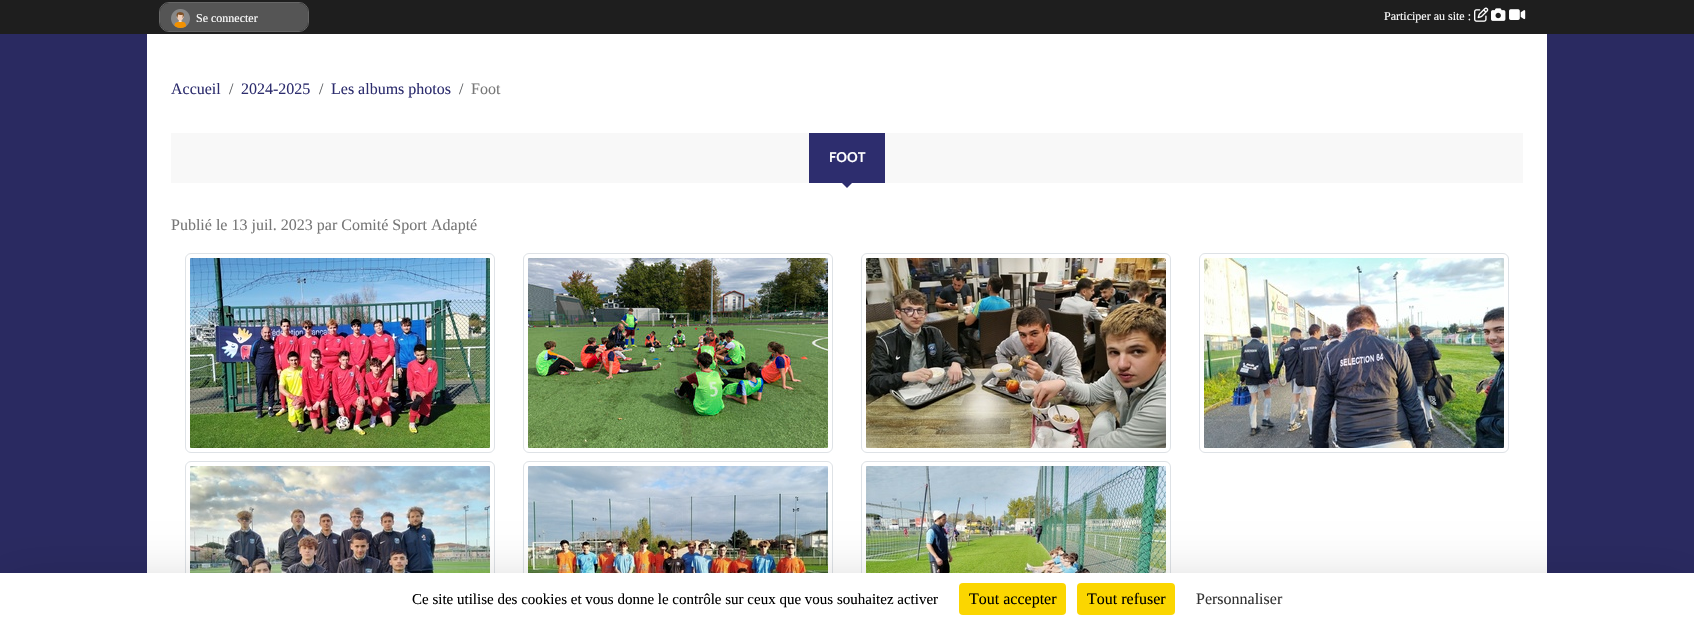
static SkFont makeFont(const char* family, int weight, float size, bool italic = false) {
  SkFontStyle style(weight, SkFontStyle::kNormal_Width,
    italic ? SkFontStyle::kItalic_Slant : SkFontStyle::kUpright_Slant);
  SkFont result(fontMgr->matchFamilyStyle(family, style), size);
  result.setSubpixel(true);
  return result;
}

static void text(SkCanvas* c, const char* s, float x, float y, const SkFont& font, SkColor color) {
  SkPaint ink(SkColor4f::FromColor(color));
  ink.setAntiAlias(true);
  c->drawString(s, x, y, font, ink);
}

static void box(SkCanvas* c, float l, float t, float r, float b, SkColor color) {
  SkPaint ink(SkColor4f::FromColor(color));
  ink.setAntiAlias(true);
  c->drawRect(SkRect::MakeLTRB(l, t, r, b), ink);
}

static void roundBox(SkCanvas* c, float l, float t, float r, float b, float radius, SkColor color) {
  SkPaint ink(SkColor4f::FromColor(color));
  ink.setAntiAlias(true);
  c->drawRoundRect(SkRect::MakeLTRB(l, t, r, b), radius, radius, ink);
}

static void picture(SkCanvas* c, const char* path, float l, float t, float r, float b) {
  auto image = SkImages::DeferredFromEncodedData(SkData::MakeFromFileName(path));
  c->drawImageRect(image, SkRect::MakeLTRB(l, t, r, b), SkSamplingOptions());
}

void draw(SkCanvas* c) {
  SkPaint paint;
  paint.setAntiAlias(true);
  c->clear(0xff2a2a61);
  box(c, 0, 0, 1694, 34, 0xff1e1e1e);
  paint.setStyle(SkPaint::kStroke_Style);
  paint.setStrokeWidth(1);
  paint.setColor(0xff666666);
  c->drawRoundRect(SkRect::MakeLTRB(159.5f, 2.5f, 308.5f, 31.5f), 9.5f, 9.5f, paint);
  roundBox(c, 160, 3, 308, 31, 9, 0xff555555);
  picture(c, "img_01.png", 171, 9, 190, 28);
  SkFont face1 = makeFont("Liberation Serif", 400, 12);
  text(c, "Se connecter", 196, 22, face1, 0xffffffff);
  text(c, "Participer au site :", 1384, 20, face1, 0xffffffff);
  picture(c, "img_02.png", 1474, 7, 1489, 22);
  picture(c, "img_03.png", 1491, 8, 1506, 21);
  picture(c, "img_04.png", 1509, 9, 1526, 20);
  box(c, 147, 34, 1547, 573, 0xffffffff);
  SkFont face2 = makeFont("Liberation Serif", 400, 16);
  text(c, "Accueil", 171, 94, face2, 0xff2d2d6e);
  text(c, "/", 229, 94, face2, 0xff595c5f);
  text(c, "2024-2025", 241, 94, face2, 0xff2d2d6e);
  text(c, "/", 319, 94, face2, 0xff595c5f);
  text(c, "Les albums photos", 331, 94, face2, 0xff2d2d6e);
  text(c, "/", 459, 94, face2, 0xff595c5f);
  text(c, "Foot", 471, 94, face2, 0xff777777);
  box(c, 171, 133, 1523, 183, 0xfff8f8f8);
  box(c, 809, 133, 885, 183, 0xff2d2d6e);
  SkFont face3 = makeFont("Cabin", 600, 14);
  text(c, "FOOT", 829, 162, face3, 0xffffffff);
  paint.setStyle(SkPaint::kFill_Style);
  paint.setColor(0xff2d2d6e);
  c->drawPath(SkPathBuilder().moveTo(842, 183).lineTo(852, 183).lineTo(847, 188).close().detach(), paint);
  text(c, "Publié le 13 juil. 2023 par Comité Sport Adapté", 171, 230, face2, 0xff777777);
  paint.setStyle(SkPaint::kStroke_Style);
  paint.setColor(0xffdee2e6);
  c->drawRoundRect(SkRect::MakeLTRB(185.5f, 253.5f, 494.5f, 452.5f), 5.5f, 5.5f, paint);
  picture(c, "img_05.png", 190, 258, 490, 448);
  c->drawRoundRect(SkRect::MakeLTRB(523.5f, 253.5f, 832.5f, 452.5f), 5.5f, 5.5f, paint);
  picture(c, "img_06.png", 528, 258, 828, 448);
  c->drawRoundRect(SkRect::MakeLTRB(861.5f, 253.5f, 1170.5f, 452.5f), 5.5f, 5.5f, paint);
  picture(c, "img_07.png", 866, 258, 1166, 448);
  c->drawRoundRect(SkRect::MakeLTRB(1199.5f, 253.5f, 1508.5f, 452.5f), 5.5f, 5.5f, paint);
  picture(c, "img_08.png", 1204, 258, 1504, 448);
  c->drawRoundRect(SkRect::MakeLTRB(185.5f, 461.5f, 494.5f, 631.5f), 5.5f, 5.5f, paint);
  picture(c, "img_09.png", 190, 466, 490, 573);
  c->drawRoundRect(SkRect::MakeLTRB(523.5f, 461.5f, 832.5f, 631.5f), 5.5f, 5.5f, paint);
  picture(c, "img_10.png", 528, 466, 828, 573);
  c->drawRoundRect(SkRect::MakeLTRB(861.5f, 461.5f, 1170.5f, 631.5f), 5.5f, 5.5f, paint);
  picture(c, "img_11.png", 866, 466, 1166, 573);
  paint.setStyle(SkPaint::kFill_Style);
  paint.setColor(0x40000000);
  paint.setMaskFilter(SkMaskFilter::MakeBlur(kNormal_SkBlurStyle, 30));
  c->drawRect(SkRect::MakeLTRB(0, 593, 1694, 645), paint);
  paint.setMaskFilter(nullptr);
  box(c, 0, 573, 1694, 625, 0xffffffff);
  SkFont face4 = makeFont("Liberation Serif", 400, 15);
  text(c, "Ce site utilise des cookies et vous donne le contrôle sur ceux que vous souhaitez activer", 412, 604, face4, 0xff000000);
  roundBox(c, 959, 583, 1066, 615, 4, 0xfffbd600);
  text(c, "Tout accepter", 969, 604, face2, 0xff000000);
  roundBox(c, 1077, 583, 1175, 615, 4, 0xfffbd600);
  text(c, "Tout refuser", 1087, 604, face2, 0xff000000);
  text(c, "Personnaliser", 1196, 604, face2, 0xff333333);
}
